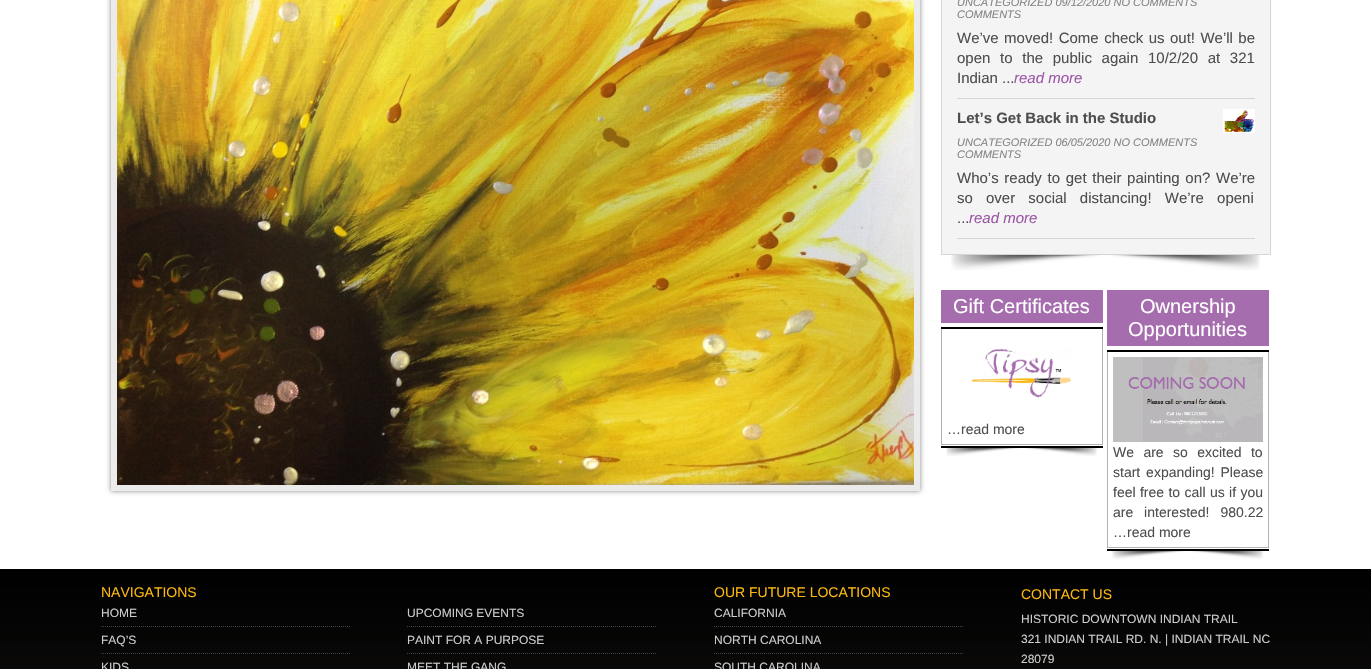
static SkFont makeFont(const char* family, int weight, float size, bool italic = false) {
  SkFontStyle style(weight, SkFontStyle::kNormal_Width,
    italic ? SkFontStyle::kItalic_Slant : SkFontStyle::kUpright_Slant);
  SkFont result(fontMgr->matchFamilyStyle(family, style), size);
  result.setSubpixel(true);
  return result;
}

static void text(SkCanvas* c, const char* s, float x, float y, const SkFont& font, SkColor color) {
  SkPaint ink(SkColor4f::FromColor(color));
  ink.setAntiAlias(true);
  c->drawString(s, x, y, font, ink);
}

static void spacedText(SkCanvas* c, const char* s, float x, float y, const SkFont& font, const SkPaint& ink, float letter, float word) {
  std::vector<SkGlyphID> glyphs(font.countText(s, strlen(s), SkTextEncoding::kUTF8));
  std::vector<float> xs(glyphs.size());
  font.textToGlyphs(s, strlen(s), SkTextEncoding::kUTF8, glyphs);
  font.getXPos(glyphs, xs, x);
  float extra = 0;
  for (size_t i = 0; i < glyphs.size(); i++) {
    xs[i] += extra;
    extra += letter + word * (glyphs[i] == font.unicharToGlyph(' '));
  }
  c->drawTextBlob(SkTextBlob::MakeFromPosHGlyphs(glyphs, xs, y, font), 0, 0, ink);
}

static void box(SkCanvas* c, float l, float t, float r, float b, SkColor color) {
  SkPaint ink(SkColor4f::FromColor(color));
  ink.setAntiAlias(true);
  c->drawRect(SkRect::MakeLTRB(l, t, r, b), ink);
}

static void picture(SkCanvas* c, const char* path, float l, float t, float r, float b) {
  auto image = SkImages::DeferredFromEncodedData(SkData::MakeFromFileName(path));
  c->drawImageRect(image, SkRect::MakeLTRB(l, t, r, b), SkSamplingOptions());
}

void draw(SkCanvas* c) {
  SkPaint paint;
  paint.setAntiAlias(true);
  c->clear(0xffffffff);
  paint.setColor(0xff888888);
  paint.setMaskFilter(SkMaskFilter::MakeBlur(kNormal_SkBlurStyle, 2.5f));
  c->drawRect(SkRect::MakeLTRB(111, -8, 920, 491), paint);
  paint.setMaskFilter(nullptr);
  box(c, 111, 0, 920, 491, 0xffebebeb);
  picture(c, "img_01.png", 117, 0, 914, 485);
  paint.setColor(0xfff4f4f4);
  c->drawRect(SkRect::MakeLTRB(941.5f, -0.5f, 1270.5f, 254.5f), paint);
  paint.setStyle(SkPaint::kStroke_Style);
  paint.setStrokeWidth(1);
  paint.setColor(0xffd5d5d5);
  c->drawRect(SkRect::MakeLTRB(941.5f, -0.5f, 1270.5f, 254.5f), paint);
  SkFont face1 = makeFont("Liberation Sans", 400, 11, true);
  text(c, "UNCATEGORIZED 09/12/2020 NO COMMENTS", 957, 6, face1, 0xff858585);
  text(c, "COMMENTS", 957, 18, face1, 0xff858585);
  SkFont face2 = makeFont("Liberation Sans", 400, 15);
  paint.setStyle(SkPaint::kFill_Style);
  paint.setColor(0xff4e4e4e);
  spacedText(c, "We’ve moved! Come check us out! We’ll be", 957, 43, face2, paint, 0, 1.25f);
  spacedText(c, "open to the public again 10/2/20 at 321", 957, 63, face2, paint, 0, 5.5f);
  text(c, "Indian ...", 957, 83, face2, 0xff4e4e4e);
  SkFont face3 = makeFont("Liberation Sans", 400, 15, true);
  text(c, "read more", 1014, 83, face3, 0xff9b56a6);
  box(c, 957, 98, 1255, 99, 0xffd5d5d5);
  SkFont face4 = makeFont("Liberation Sans", 700, 15);
  text(c, "Let’s Get Back in the Studio", 957, 123, face4, 0xff4e4e4e);
  paint.setStyle(SkPaint::kStroke_Style);
  paint.setColor(0xffffffff);
  c->drawRect(SkRect::MakeLTRB(1223.5f, 109.5f, 1254.5f, 132.5f), paint);
  picture(c, "img_02.png", 1224, 110, 1254, 132);
  text(c, "UNCATEGORIZED 06/05/2020 NO COMMENTS", 957, 146, face1, 0xff858585);
  text(c, "COMMENTS", 957, 158, face1, 0xff858585);
  paint.setStyle(SkPaint::kFill_Style);
  paint.setColor(0xff4e4e4e);
  spacedText(c, "Who’s ready to get their painting on? We’re", 957, 183, face2, paint, 0, 1.5f);
  spacedText(c, "so over social distancing! We’re openi", 957, 203, face2, paint, 0, 9);
  text(c, "...", 957, 223, face2, 0xff4e4e4e);
  text(c, "read more", 969, 223, face3, 0xff9b56a6);
  box(c, 957, 238, 1255, 239, 0xffd5d5d5);
  picture(c, "img_03.png", 951, 255, 1260, 270);
  box(c, 941, 290, 1103, 323, 0xffa56dae);
  SkFont face5 = makeFont("Liberation Sans", 400, 20);
  text(c, "Gift Certificates", 953, 313, face5, 0xffffffff);
  box(c, 941, 327, 1103, 329, 0xff000000);
  box(c, 1102, 329, 1103, 445, 0xffb2b4b4);
  box(c, 941, 444, 1103, 445, 0xffb2b4b4);
  box(c, 941, 329, 942, 445, 0xffb2b4b4);
  picture(c, "img_04.png", 972, 348, 1071, 398);
  SkFont face6 = makeFont("Liberation Sans", 400, 14);
  text(c, "…read more", 947, 434, face6, 0xff4e4e4e);
  box(c, 941, 446, 1103, 448, 0xff000000);
  picture(c, "img_05.png", 946, 448, 1097, 456);
  box(c, 1107, 290, 1269, 346, 0xffa56dae);
  text(c, "Ownership", 1140, 313, face5, 0xffffffff);
  text(c, "Opportunities", 1128, 336, face5, 0xffffffff);
  box(c, 1107, 350, 1269, 352, 0xff000000);
  box(c, 1268, 352, 1269, 548, 0xffb2b4b4);
  box(c, 1107, 547, 1269, 548, 0xffb2b4b4);
  box(c, 1107, 352, 1108, 548, 0xffb2b4b4);
  picture(c, "img_06.png", 1113, 357, 1263, 442);
  spacedText(c, "We are so excited to", 1113, 457, face6, paint, 0, 5.5f);
  spacedText(c, "start expanding! Please", 1113, 477, face6, paint, 0, 2);
  spacedText(c, "feel free to call us if you", 1113, 497, face6, paint, 0, 0.5f);
  spacedText(c, "are interested! 980.22", 1113, 517, face6, paint, 0, 7);
  text(c, "…read more", 1113, 537, face6, 0xff4e4e4e);
  box(c, 1107, 549, 1269, 551, 0xff000000);
  picture(c, "img_05.png", 1112, 551, 1263, 559);
  {
    const SkColor colors[] = {0xff000000, 0xff1f1b19};
    const float stops[] = {0, 1};
    const SkPoint ends[] = {{686, 569}, {686, 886}};
    paint.setShader(SkGradientShader::MakeLinear(ends, colors, stops, 2, SkTileMode::kClamp));
    paint.setAlpha(255);
  }
  c->drawRect(SkRect::MakeLTRB(0, 569, 1371, 669), paint);
  text(c, "NAVIGATIONS", 101, 597, face6, 0xfffcb710);
  paint.setStyle(SkPaint::kStroke_Style);
  paint.setShader(nullptr);
  paint.setColor(0xff414141);
  paint.setPathEffect(SkDashPathEffect::Make({{1, 1}}, 0));
  c->drawPath(SkPathBuilder().moveTo(101, 626.5f).lineTo(351, 626.5f).detach(), paint);
  paint.setPathEffect(nullptr);
  SkFont face7 = makeFont("Liberation Sans", 400, 12);
  text(c, "HOME", 101, 617, face7, 0xffcccccc);
  paint.setPathEffect(SkDashPathEffect::Make({{1, 1}}, 0));
  c->drawPath(SkPathBuilder().moveTo(101, 653.5f).lineTo(351, 653.5f).detach(), paint);
  paint.setPathEffect(nullptr);
  text(c, "FAQ’S", 101, 644, face7, 0xffcccccc);
  text(c, "KIDS", 101, 671, face7, 0xffcccccc);
  paint.setPathEffect(SkDashPathEffect::Make({{1, 1}}, 0));
  c->drawPath(SkPathBuilder().moveTo(407, 626.5f).lineTo(657, 626.5f).detach(), paint);
  paint.setPathEffect(nullptr);
  text(c, "UPCOMING EVENTS", 407, 617, face7, 0xffcccccc);
  paint.setPathEffect(SkDashPathEffect::Make({{1, 1}}, 0));
  c->drawPath(SkPathBuilder().moveTo(407, 653.5f).lineTo(657, 653.5f).detach(), paint);
  paint.setPathEffect(nullptr);
  text(c, "PAINT FOR A PURPOSE", 407, 644, face7, 0xffcccccc);
  text(c, "MEET THE GANG", 407, 671, face7, 0xffcccccc);
  text(c, "OUR FUTURE LOCATIONS", 714, 597, face6, 0xfffcb710);
  paint.setPathEffect(SkDashPathEffect::Make({{1, 1}}, 0));
  c->drawPath(SkPathBuilder().moveTo(714, 626.5f).lineTo(964, 626.5f).detach(), paint);
  paint.setPathEffect(nullptr);
  text(c, "CALIFORNIA", 714, 617, face7, 0xffcccccc);
  paint.setPathEffect(SkDashPathEffect::Make({{1, 1}}, 0));
  c->drawPath(SkPathBuilder().moveTo(714, 653.5f).lineTo(964, 653.5f).detach(), paint);
  paint.setPathEffect(nullptr);
  text(c, "NORTH CAROLINA", 714, 644, face7, 0xffcccccc);
  text(c, "SOUTH CAROLINA", 714, 671, face7, 0xffcccccc);
  text(c, "CONTACT US", 1021, 599, face6, 0xfffcb710);
  text(c, "HISTORIC DOWNTOWN INDIAN TRAIL", 1021, 623, face7, 0xffcccccc);
  text(c, "321 INDIAN TRAIL RD. N. | INDIAN TRAIL NC", 1021, 643, face7, 0xffcccccc);
  text(c, "28079", 1021, 663, face7, 0xffcccccc);
}
